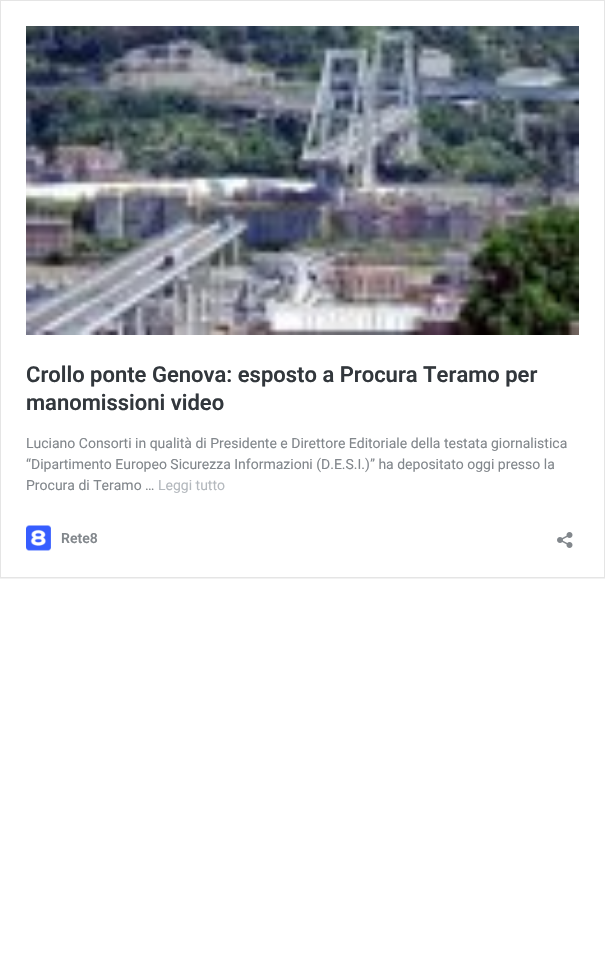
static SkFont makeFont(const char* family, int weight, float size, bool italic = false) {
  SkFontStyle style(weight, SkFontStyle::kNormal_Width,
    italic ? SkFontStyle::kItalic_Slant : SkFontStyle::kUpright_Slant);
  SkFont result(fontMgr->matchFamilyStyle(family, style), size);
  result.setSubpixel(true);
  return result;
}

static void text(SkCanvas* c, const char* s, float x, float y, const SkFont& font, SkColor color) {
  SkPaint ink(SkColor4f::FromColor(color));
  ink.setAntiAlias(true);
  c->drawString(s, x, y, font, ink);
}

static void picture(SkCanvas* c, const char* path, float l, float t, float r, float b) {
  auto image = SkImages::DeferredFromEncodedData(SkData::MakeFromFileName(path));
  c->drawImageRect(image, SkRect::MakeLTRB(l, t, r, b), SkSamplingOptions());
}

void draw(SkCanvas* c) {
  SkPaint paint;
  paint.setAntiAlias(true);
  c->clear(0xffffffff);
  c->save();
  c->clipRect(SkRect::MakeLTRB(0, 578, 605, 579));
  paint.setColor(0x0d000000);
  paint.setMaskFilter(SkMaskFilter::MakeBlur(kNormal_SkBlurStyle, 0.5f));
  c->drawRect(SkRect::MakeLTRB(0, 1, 605, 579), paint);
  paint.setMaskFilter(nullptr);
  c->restore();
  paint.setStyle(SkPaint::kStroke_Style);
  paint.setStrokeWidth(1);
  paint.setColor(0xffe5e5e5);
  c->drawRect(SkRect::MakeLTRB(0.5f, 0.5f, 604.5f, 577.5f), paint);
  picture(c, "img_01.png", 26, 26, 579, 335);
  SkFont face1 = makeFont("Roboto", 600, 22);
  text(c, "Crollo ponte Genova: esposto a Procura Teramo per", 26, 382, face1, 0xff32373c);
  text(c, "manomissioni video", 26, 410, face1, 0xff32373c);
  SkFont face2 = makeFont("Roboto", 400, 14);
  text(c, "Luciano Consorti in qualità di Presidente e Direttore Editoriale della testata giornalistica", 26, 448, face2, 0xff82878c);
  text(c, "“Dipartimento Europeo Sicurezza Informazioni (D.E.S.I.)” ha depositato oggi presso la", 26, 469, face2, 0xff82878c);
  text(c, "Procura di Teramo …", 26, 490, face2, 0xff82878c);
  text(c, "Leggi tutto", 158, 490, face2, 0xffb4b9be);
  picture(c, "img_02.png", 26, 525, 51, 551);
  SkFont face3 = makeFont("Roboto", 600, 14);
  text(c, "Rete8", 61, 543, face3, 0xff82878c);
  picture(c, "img_03.png", 557, 532, 573, 548);
}
